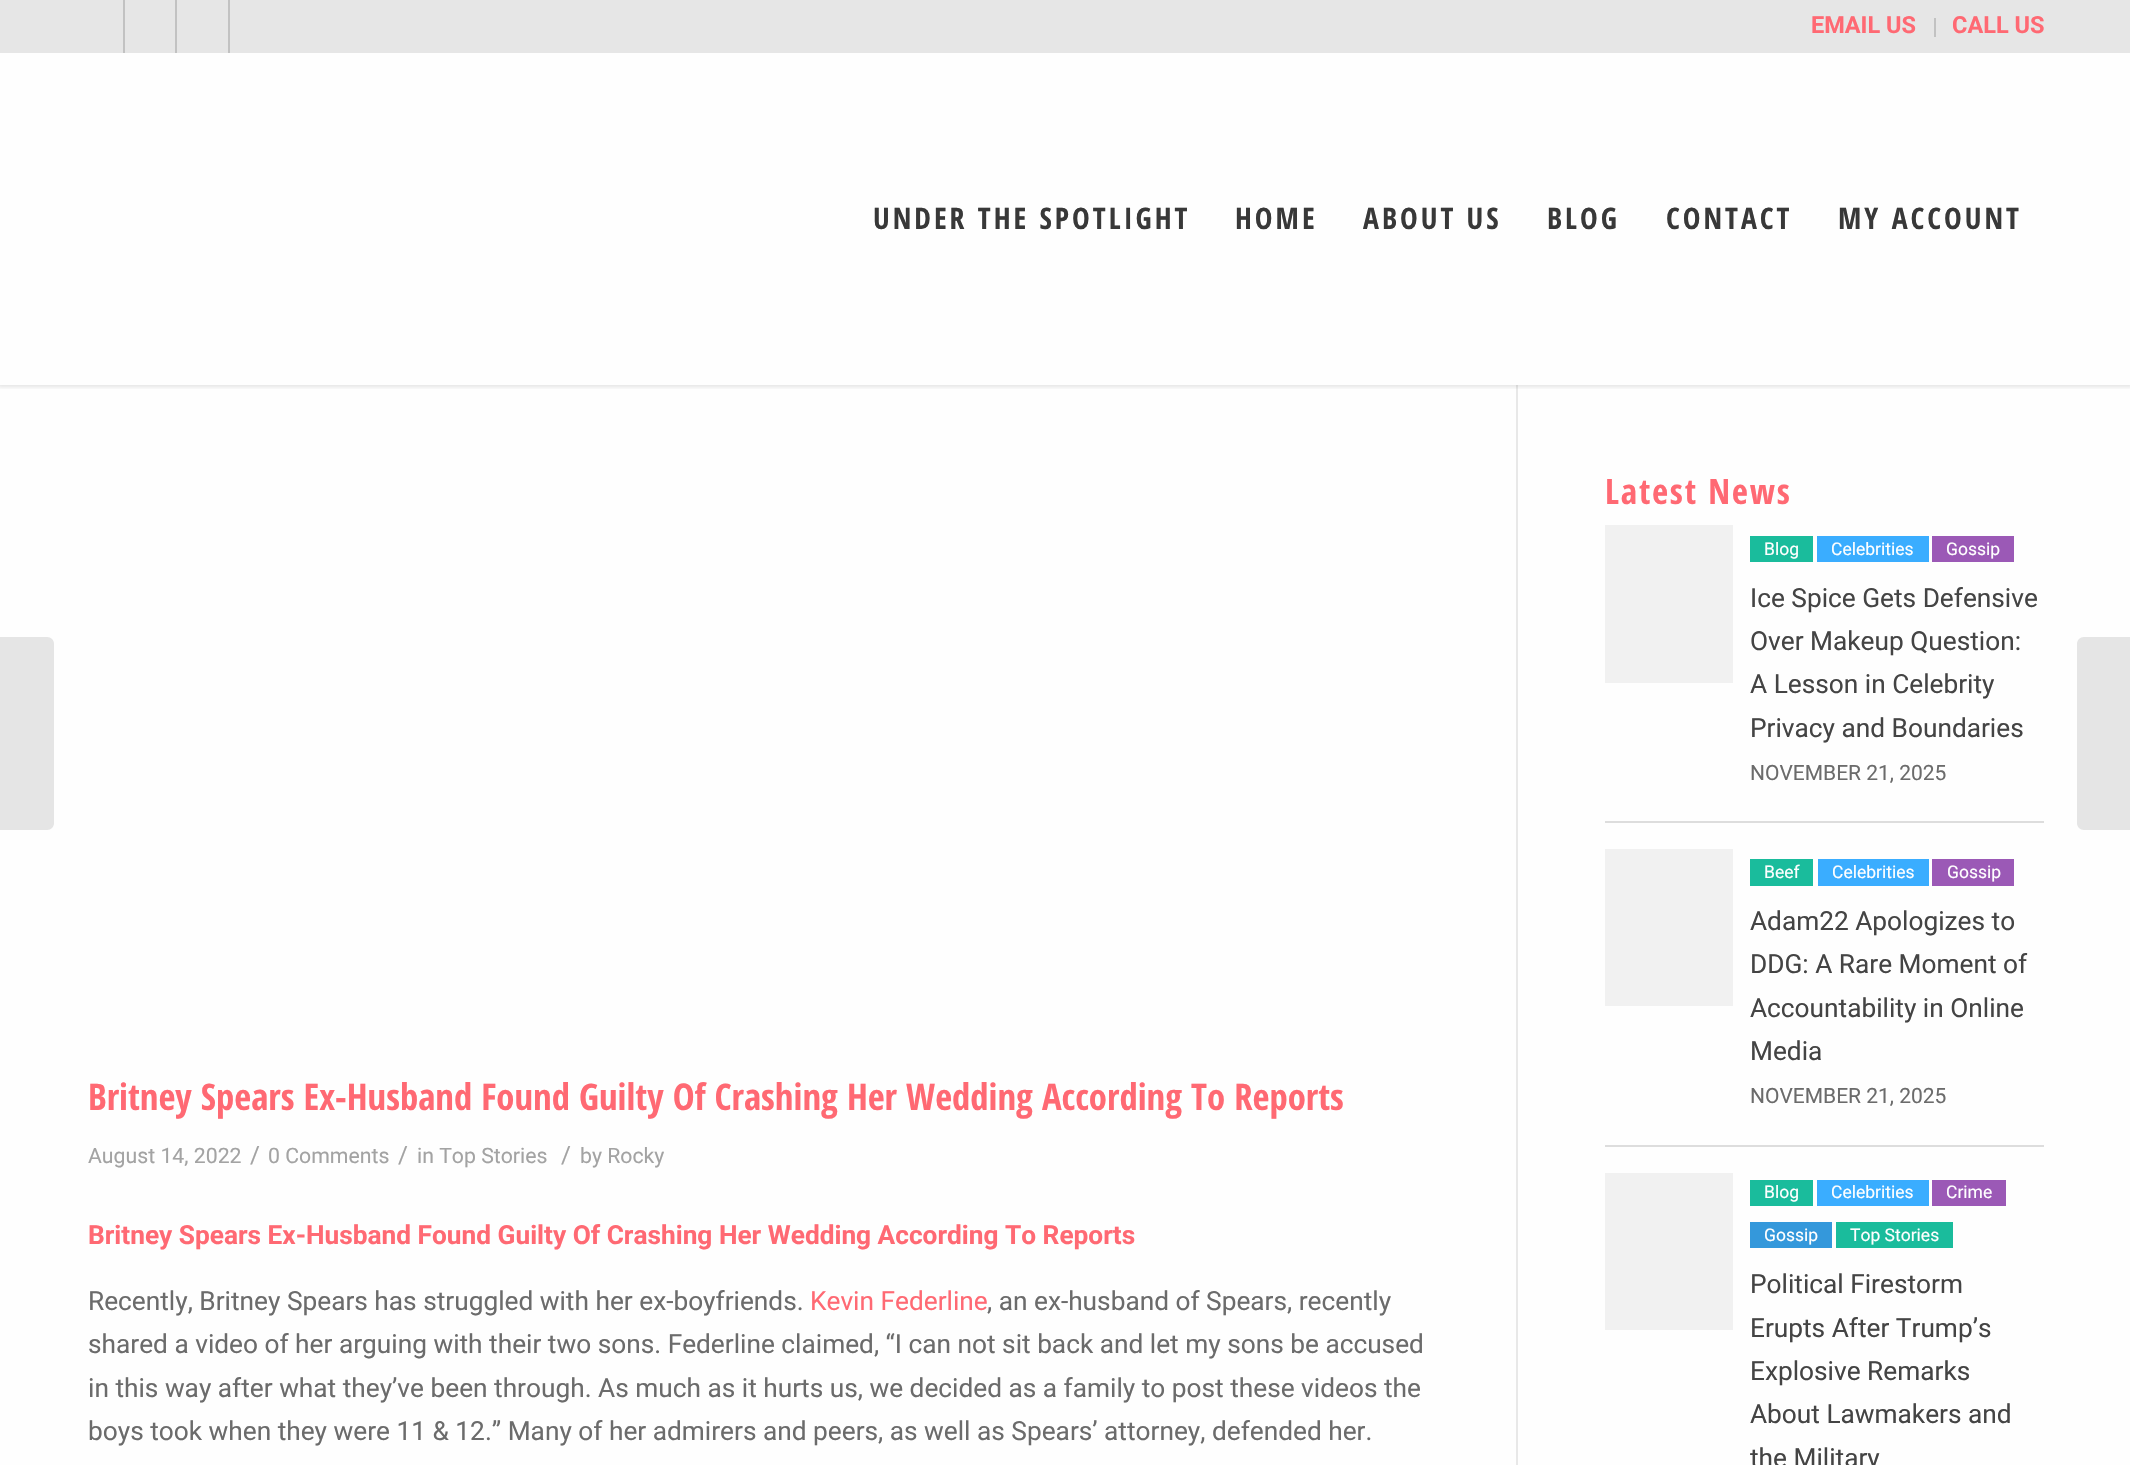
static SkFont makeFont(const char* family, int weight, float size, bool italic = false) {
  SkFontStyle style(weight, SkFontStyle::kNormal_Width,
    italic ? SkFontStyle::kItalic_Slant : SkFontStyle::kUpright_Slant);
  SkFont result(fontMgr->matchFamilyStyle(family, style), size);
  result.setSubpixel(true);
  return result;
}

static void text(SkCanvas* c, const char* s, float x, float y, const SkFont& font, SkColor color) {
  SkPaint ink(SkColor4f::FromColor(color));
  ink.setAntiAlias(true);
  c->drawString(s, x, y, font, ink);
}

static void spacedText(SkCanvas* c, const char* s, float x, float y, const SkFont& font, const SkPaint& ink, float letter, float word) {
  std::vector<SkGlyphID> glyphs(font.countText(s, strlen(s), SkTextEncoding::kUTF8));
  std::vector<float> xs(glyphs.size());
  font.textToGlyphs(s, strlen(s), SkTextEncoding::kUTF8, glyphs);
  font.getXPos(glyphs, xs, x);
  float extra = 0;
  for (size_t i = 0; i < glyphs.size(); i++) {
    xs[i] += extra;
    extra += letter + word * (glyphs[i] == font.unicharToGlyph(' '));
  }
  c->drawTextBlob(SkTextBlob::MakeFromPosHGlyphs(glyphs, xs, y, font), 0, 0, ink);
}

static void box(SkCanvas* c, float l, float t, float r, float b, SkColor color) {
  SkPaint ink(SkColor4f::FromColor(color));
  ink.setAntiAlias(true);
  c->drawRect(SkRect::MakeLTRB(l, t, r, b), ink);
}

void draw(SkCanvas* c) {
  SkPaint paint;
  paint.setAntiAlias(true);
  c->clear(0xfffefefe);
  paint.setColor(0xffe5e5e5);
  c->drawPath(SkPathBuilder().moveTo(0, 637).lineTo(47, 637).cubicTo(51, 637, 54, 640, 54, 644).lineTo(54, 823).cubicTo(54, 827, 51, 830, 47, 830).lineTo(0, 830).close().detach(), paint);
  box(c, 1516, 385, 1518, 1465, 0xffe8e8e8);
  c->save();
  c->clipRect(SkRect::MakeLTRB(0, 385, 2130, 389));
  paint.setColor(0x1a000000);
  paint.setMaskFilter(SkMaskFilter::MakeBlur(kNormal_SkBlurStyle, 2));
  c->drawRect(SkRect::MakeLTRB(-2, -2, 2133, 387), paint);
  paint.setMaskFilter(nullptr);
  c->restore();
  box(c, 0, 0, 2130, 53, 0xffe6e6e6);
  box(c, 123, 0, 125, 53, 0xffc2c2c2);
  box(c, 175, 0, 177, 53, 0xffc2c2c2);
  box(c, 228, 0, 230, 53, 0xffc2c2c2);
  box(c, 1934, 18, 1936, 37, 0xffc2c2c2);
  SkFont face1 = makeFont("Roboto", 700, 23.5f);
  text(c, "EMAIL US", 1811, 33, face1, 0xffff6973);
  text(c, "CALL US", 1952, 33, face1, 0xffff6973);
  SkFont face2 = makeFont("Open Sans Condensed", 700, 29.75f);
  paint.setColor(0xff383838);
  spacedText(c, "UNDER THE SPOTLIGHT", 873, 229, face2, paint, 3, 0);
  spacedText(c, "HOME", 1235, 229, face2, paint, 3, 0);
  spacedText(c, "ABOUT US", 1363, 229, face2, paint, 3, 0);
  spacedText(c, "BLOG", 1547, 229, face2, paint, 3, 0);
  spacedText(c, "CONTACT", 1666, 229, face2, paint, 3, 0);
  spacedText(c, "MY ACCOUNT", 1838, 229, face2, paint, 3, 0);
  SkFont face3 = makeFont("Open Sans Condensed", 700, 36.75f);
  text(c, "Britney Spears Ex-Husband Found Guilty Of Crashing Her Wedding According To Reports", 88, 1110, face3, 0xffff6973);
  SkFont face4 = makeFont("Roboto", 400, 21.25f);
  text(c, "August 14, 2022", 88, 1163, face4, 0xffa3a3a3);
  SkFont face5 = makeFont("Roboto", 400, 24);
  text(c, "/", 250, 1163, face5, 0xffa3a3a3);
  text(c, "0 Comments", 268, 1163, face4, 0xffa3a3a3);
  text(c, "/", 398, 1163, face5, 0xffa3a3a3);
  text(c, "in Top Stories", 417, 1163, face4, 0xffa3a3a3);
  text(c, "/", 561, 1163, face5, 0xffa3a3a3);
  text(c, "by Rocky", 580, 1163, face4, 0xffa3a3a3);
  SkFont face6 = makeFont("Roboto", 700, 26.25f);
  text(c, "Britney Spears Ex-Husband Found Guilty Of Crashing Her Wedding According To Reports", 88, 1244, face6, 0xffff6973);
  SkFont face7 = makeFont("Roboto", 400, 26.25f);
  text(c, "Recently, Britney Spears has struggled with her ex-boyfriends.", 88, 1310, face7, 0xff6b6b6b);
  text(c, "Kevin Federline", 810, 1310, face7, 0xffff6973);
  text(c, ", an ex-husband of Spears, recently", 987, 1310, face7, 0xff6b6b6b);
  text(c, "shared a video of her arguing with their two sons. Federline claimed, “I can not sit back and let my sons be accused", 88, 1353, face7, 0xff6b6b6b);
  text(c, "in this way after what they’ve been through. As much as it hurts us, we decided as a family to post these videos the", 88, 1397, face7, 0xff6b6b6b);
  text(c, "boys took when they were 11 & 12.” Many of her admirers and peers, as well as Spears’ attorney, defended her.", 88, 1440, face7, 0xff6b6b6b);
  SkFont face8 = makeFont("Open Sans Condensed", 700, 35);
  paint.setColor(0xffff6973);
  spacedText(c, "Latest News", 1605, 504, face8, paint, 1.75f, 0);
  box(c, 1605, 821, 2044, 823, 0xffdddddd);
  box(c, 1605, 525, 1733, 683, 0xfff1f1f1);
  box(c, 1750, 536, 1813, 562, 0xff1abc9c);
  SkFont face9 = makeFont("Roboto", 400, 17.5f);
  text(c, "Blog", 1764, 555, face9, 0xffffffff);
  box(c, 1817, 536, 1929, 562, 0xff3aadff);
  text(c, "Celebrities", 1831, 555, face9, 0xffffffff);
  box(c, 1932, 536, 2014, 562, 0xff9b59b6);
  text(c, "Gossip", 1946, 555, face9, 0xffffffff);
  text(c, "Ice Spice Gets Defensive", 1750, 607, face7, 0xff444444);
  text(c, "Over Makeup Question:", 1750, 650, face7, 0xff444444);
  text(c, "A Lesson in Celebrity", 1750, 693, face7, 0xff444444);
  text(c, "Privacy and Boundaries", 1750, 737, face7, 0xff444444);
  SkFont face10 = makeFont("Roboto", 400, 21);
  text(c, "NOVEMBER 21, 2025", 1750, 780, face10, 0xff6b6b6b);
  box(c, 1605, 1145, 2044, 1147, 0xffdddddd);
  box(c, 1605, 849, 1733, 1006, 0xfff1f1f1);
  box(c, 1750, 859, 1813, 886, 0xff1abc9c);
  text(c, "Beef", 1764, 878, face9, 0xffffffff);
  box(c, 1818, 859, 1929, 886, 0xff3aadff);
  text(c, "Celebrities", 1832, 878, face9, 0xffffffff);
  box(c, 1932, 859, 2014, 886, 0xff9b59b6);
  text(c, "Gossip", 1947, 878, face9, 0xffffffff);
  text(c, "Adam22 Apologizes to", 1750, 930, face7, 0xff444444);
  text(c, "DDG: A Rare Moment of", 1750, 973, face7, 0xff444444);
  text(c, "Accountability in Online", 1750, 1017, face7, 0xff444444);
  text(c, "Media", 1750, 1060, face7, 0xff444444);
  text(c, "NOVEMBER 21, 2025", 1750, 1103, face10, 0xff6b6b6b);
  box(c, 1605, 1173, 1733, 1330, 0xfff1f1f1);
  box(c, 1750, 1180, 1813, 1206, 0xff1abc9c);
  text(c, "Blog", 1764, 1198, face9, 0xffffffff);
  box(c, 1817, 1180, 1929, 1206, 0xff3aadff);
  text(c, "Celebrities", 1831, 1198, face9, 0xffffffff);
  box(c, 1932, 1180, 2006, 1206, 0xff9b59b6);
  text(c, "Crime", 1946, 1198, face9, 0xffffffff);
  box(c, 1750, 1222, 1832, 1248, 0xff3498db);
  text(c, "Gossip", 1764, 1241, face9, 0xffffffff);
  box(c, 1836, 1222, 1953, 1248, 0xff1abc9c);
  text(c, "Top Stories", 1850, 1241, face9, 0xffffffff);
  text(c, "Political Firestorm", 1750, 1293, face7, 0xff444444);
  text(c, "Erupts After Trump’s", 1750, 1337, face7, 0xff444444);
  text(c, "Explosive Remarks", 1750, 1380, face7, 0xff444444);
  text(c, "About Lawmakers and", 1750, 1423, face7, 0xff444444);
  text(c, "the Military", 1750, 1467, face7, 0xff444444);
  paint.setColor(0xffe5e5e5);
  c->drawPath(SkPathBuilder().moveTo(2084, 637).lineTo(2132, 637).lineTo(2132, 830).lineTo(2084, 830).cubicTo(2080, 830, 2077, 827, 2077, 823).lineTo(2077, 644).cubicTo(2077, 640, 2080, 637, 2084, 637).close().detach(), paint);
}
